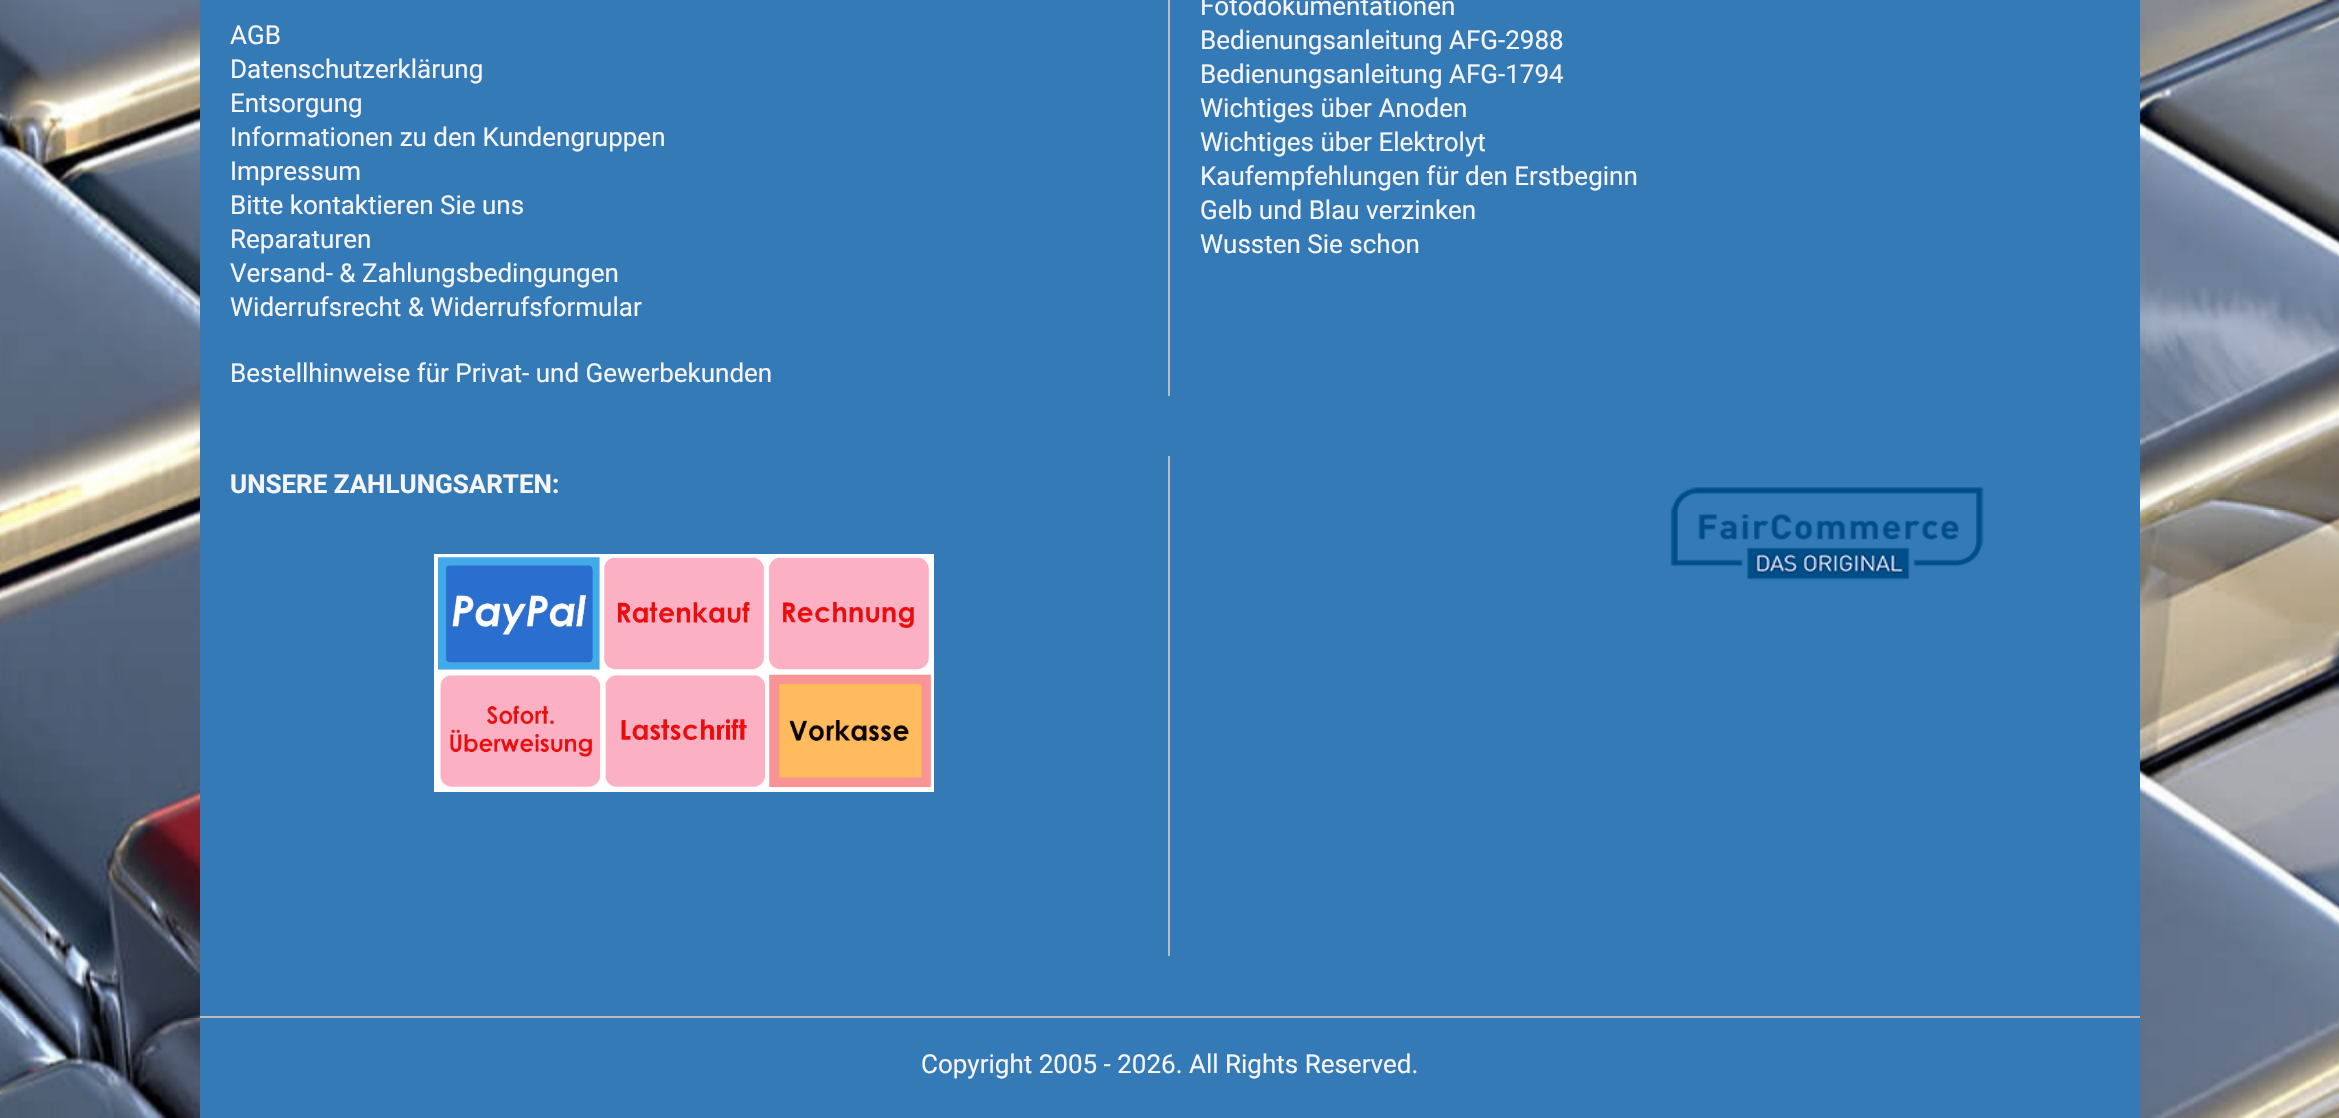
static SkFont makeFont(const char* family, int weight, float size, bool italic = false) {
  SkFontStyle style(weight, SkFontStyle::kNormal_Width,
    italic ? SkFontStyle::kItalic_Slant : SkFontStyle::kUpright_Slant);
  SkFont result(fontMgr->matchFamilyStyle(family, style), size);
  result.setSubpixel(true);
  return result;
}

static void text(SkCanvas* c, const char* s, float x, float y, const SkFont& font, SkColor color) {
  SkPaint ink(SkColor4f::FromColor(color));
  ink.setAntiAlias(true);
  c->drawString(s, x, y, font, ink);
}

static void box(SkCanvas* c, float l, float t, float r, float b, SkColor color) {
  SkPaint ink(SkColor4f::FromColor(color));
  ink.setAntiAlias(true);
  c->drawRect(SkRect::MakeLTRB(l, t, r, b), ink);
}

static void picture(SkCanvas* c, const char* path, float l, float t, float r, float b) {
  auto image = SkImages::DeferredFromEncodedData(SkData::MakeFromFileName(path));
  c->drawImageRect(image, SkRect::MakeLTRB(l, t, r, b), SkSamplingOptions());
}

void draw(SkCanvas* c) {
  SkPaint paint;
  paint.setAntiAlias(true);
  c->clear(0xffffffff);
  picture(c, "img_01.png", 0, 0, 2339, 1118);
  box(c, 200, 0, 2140, 1118, 0xff337ab7);
  box(c, 200, 1016, 2140, 1018, 0xffbbbbbb);
  box(c, 1168, 0, 1170, 396, 0xffbbbbbb);
  SkFont face1 = makeFont("Roboto", 400, 26);
  text(c, "AGB", 230, 44, face1, 0xfff7f4f4);
  text(c, "Datenschutzerklärung", 230, 78, face1, 0xfff7f4f4);
  text(c, "Entsorgung", 230, 112, face1, 0xfff7f4f4);
  text(c, "Informationen zu den Kundengruppen", 230, 146, face1, 0xfff7f4f4);
  text(c, "Impressum", 230, 180, face1, 0xfff7f4f4);
  text(c, "Bitte kontaktieren Sie uns", 230, 214, face1, 0xfff7f4f4);
  text(c, "Reparaturen", 230, 248, face1, 0xfff7f4f4);
  text(c, "Versand- & Zahlungsbedingungen", 230, 282, face1, 0xfff7f4f4);
  text(c, "Widerrufsrecht & Widerrufsformular", 230, 316, face1, 0xfff7f4f4);
  text(c, "Bestellhinweise für Privat- und Gewerbekunden", 230, 382, face1, 0xfff7f4f4);
  text(c, "Fotodokumentationen", 1200, 15, face1, 0xfff7f4f4);
  text(c, "Bedienungsanleitung AFG-2988", 1200, 49, face1, 0xfff7f4f4);
  text(c, "Bedienungsanleitung AFG-1794", 1200, 83, face1, 0xfff7f4f4);
  text(c, "Wichtiges über Anoden", 1200, 117, face1, 0xfff7f4f4);
  text(c, "Wichtiges über Elektrolyt", 1200, 151, face1, 0xfff7f4f4);
  text(c, "Kaufempfehlungen für den Erstbeginn", 1200, 185, face1, 0xfff7f4f4);
  text(c, "Gelb und Blau verzinken", 1200, 219, face1, 0xfff7f4f4);
  text(c, "Wussten Sie schon", 1200, 253, face1, 0xfff7f4f4);
  box(c, 1168, 456, 1170, 956, 0xffbbbbbb);
  SkFont face2 = makeFont("Roboto", 700, 26);
  text(c, "UNSERE ZAHLUNGSARTEN:", 230, 493, face2, 0xfff7f4f4);
  picture(c, "img_02.png", 434, 554, 934, 792);
  picture(c, "img_03.png", 1670, 487, 1984, 580);
  text(c, "Copyright 2005 - 2026. All Rights Reserved.", 921, 1073, face1, 0xfff7f4f4);
}
